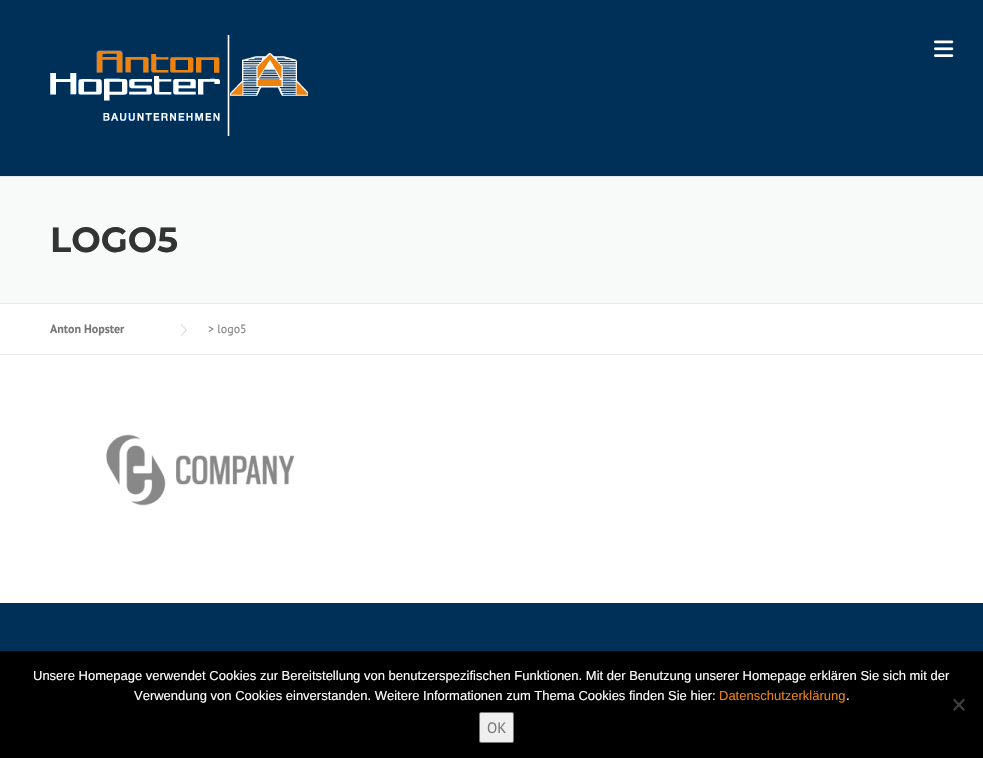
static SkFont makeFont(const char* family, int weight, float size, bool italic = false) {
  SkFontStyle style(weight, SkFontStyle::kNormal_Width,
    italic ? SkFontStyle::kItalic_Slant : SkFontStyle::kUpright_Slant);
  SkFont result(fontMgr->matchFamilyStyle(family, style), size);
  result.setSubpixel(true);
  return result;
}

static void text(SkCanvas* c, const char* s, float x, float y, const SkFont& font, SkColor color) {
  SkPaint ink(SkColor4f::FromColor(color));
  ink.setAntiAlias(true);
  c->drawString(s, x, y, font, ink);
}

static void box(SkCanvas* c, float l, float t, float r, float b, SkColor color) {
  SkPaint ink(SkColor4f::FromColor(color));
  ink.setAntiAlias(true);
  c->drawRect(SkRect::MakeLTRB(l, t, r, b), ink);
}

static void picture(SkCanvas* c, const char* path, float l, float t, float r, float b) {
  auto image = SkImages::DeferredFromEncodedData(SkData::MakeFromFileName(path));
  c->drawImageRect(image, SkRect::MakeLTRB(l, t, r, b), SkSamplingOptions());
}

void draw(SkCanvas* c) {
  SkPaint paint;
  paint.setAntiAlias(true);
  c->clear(0xffffffff);
  box(c, 0, 0, 983, 176, 0xff002f57);
  picture(c, "img_01.png", 50, 35, 308, 136);
  picture(c, "img_02.png", 934, 40, 954, 57);
  box(c, 0, 177, 983, 303, 0xfff8f9f9);
  box(c, 0, 176, 983, 177, 0xffe9e9e9);
  box(c, 0, 303, 983, 304, 0xffe9e9e9);
  SkFont face1 = makeFont("Montserrat", 700, 35);
  text(c, "LOGO5", 50, 252, face1, 0xff333333);
  box(c, 0, 354, 983, 355, 0xffe9e9e9);
  SkFont face2 = makeFont("PT Sans", 700, 12);
  text(c, "Anton Hopster", 50, 333, face2, 0xff777777);
  paint.setColor(0xffcccccc);
  c->drawPath(SkPathBuilder().moveTo(181, 336).lineTo(181, 324).lineTo(187, 330).close().detach(), paint);
  paint.setColor(0xffffffff);
  c->drawPath(SkPathBuilder().moveTo(181, 335).lineTo(181, 325).lineTo(186, 330).close().detach(), paint);
  SkFont face3 = makeFont("PT Sans", 400, 12);
  text(c, "> logo5", 208, 333, face3, 0xff858585);
  picture(c, "img_03.png", 106, 434, 295, 506);
  box(c, 0, 603, 983, 651, 0xff002f57);
  box(c, 0, 651, 983, 758, 0xff000000);
  SkFont face4 = makeFont("Liberation Sans", 400, 13);
  text(c, "Unsere Homepage verwendet Cookies zur Bereitstellung von benutzerspezifischen Funktionen. Mit der Benutzung unserer Homepage erklären Sie sich mit der", 33, 680, face4, 0xffffffff);
  text(c, "Verwendung von Cookies einverstanden. Weitere Informationen zum Thema Cookies finden Sie hier:", 134, 700, face4, 0xffffffff);
  text(c, "Datenschutzerklärung", 719, 700, face4, 0xffee820f);
  text(c, ".", 846, 700, face4, 0xffffffff);
  paint.setColor(0xff404040);
  c->drawPath(SkPathBuilder().moveTo(963.5f, 698.5f).lineTo(965, 700).lineTo(954.5f, 711).lineTo(953, 709.5f).close().detach(), paint);
  c->drawPath(SkPathBuilder().moveTo(953, 700).lineTo(954.5f, 698.5f).lineTo(965, 709.5f).lineTo(963.5f, 711).close().detach(), paint);
  paint.setColor(0xffefefef);
  c->drawRoundRect(SkRect::MakeLTRB(479.5f, 712.5f, 513.5f, 742.5f), 1.5f, 1.5f, paint);
  paint.setStyle(SkPaint::kStroke_Style);
  paint.setStrokeWidth(1);
  paint.setColor(0xff767676);
  c->drawRoundRect(SkRect::MakeLTRB(479.5f, 712.5f, 513.5f, 742.5f), 1.5f, 1.5f, paint);
  SkFont face5 = makeFont("PT Sans", 400, 15);
  text(c, "OK", 487, 733, face5, 0xff777777);
}
